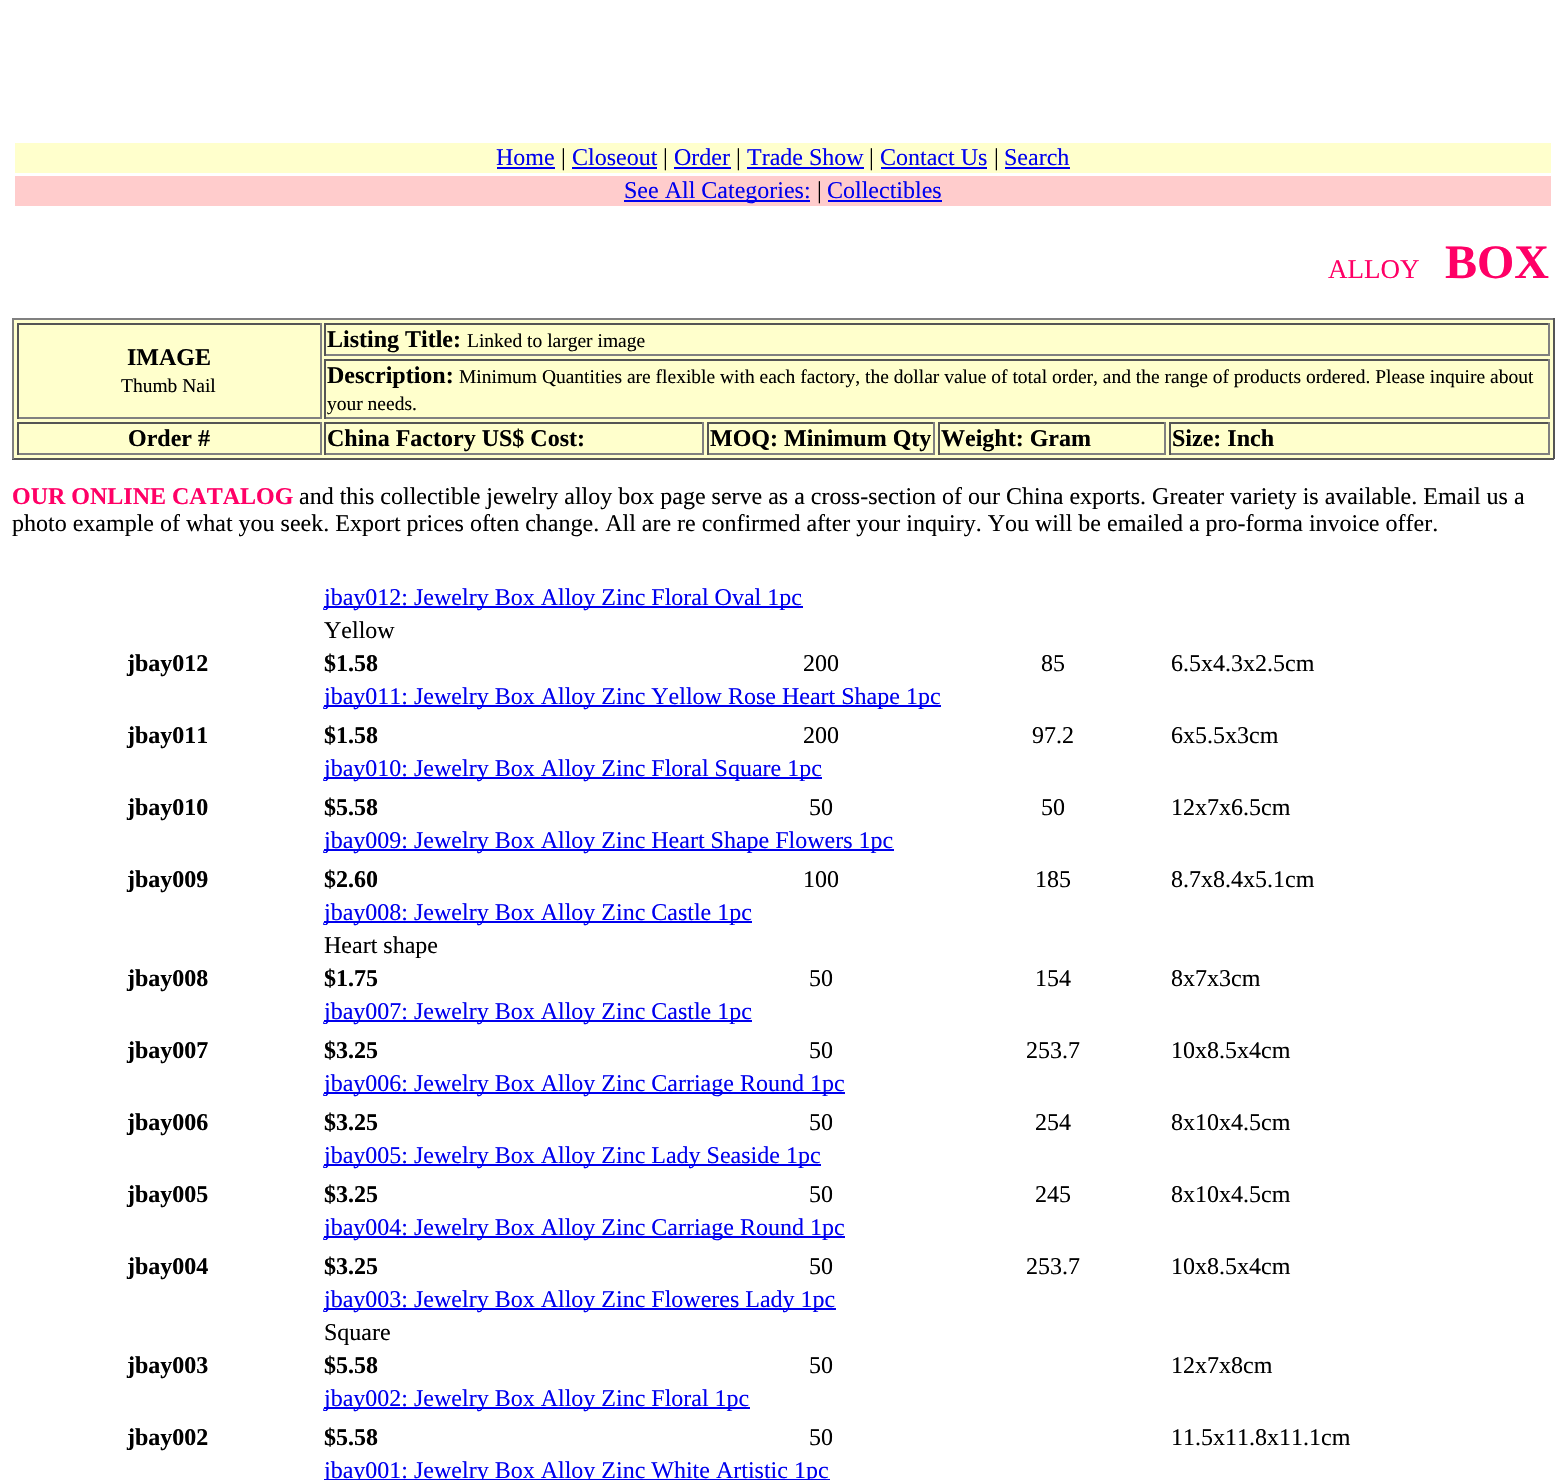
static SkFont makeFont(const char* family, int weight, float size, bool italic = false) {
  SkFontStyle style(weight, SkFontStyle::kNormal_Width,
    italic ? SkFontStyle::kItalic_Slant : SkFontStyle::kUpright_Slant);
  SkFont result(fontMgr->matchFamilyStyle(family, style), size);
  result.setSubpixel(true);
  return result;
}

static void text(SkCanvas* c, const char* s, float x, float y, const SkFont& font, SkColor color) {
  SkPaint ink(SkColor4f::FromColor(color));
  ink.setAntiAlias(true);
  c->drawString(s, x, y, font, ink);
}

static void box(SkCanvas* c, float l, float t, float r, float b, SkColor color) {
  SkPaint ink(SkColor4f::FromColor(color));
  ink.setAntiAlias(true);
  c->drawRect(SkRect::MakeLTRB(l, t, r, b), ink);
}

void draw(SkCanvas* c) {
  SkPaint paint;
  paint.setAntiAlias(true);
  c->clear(0xffffffff);
  box(c, 15, 143, 1551, 173, 0xffffffcc);
  SkFont face1 = makeFont("Liberation Serif", 400, 24);
  text(c, "Home", 496, 165, face1, 0xff0000ee);
  box(c, 497, 167, 555, 169, 0xff0000ee);
  text(c, "|", 561, 165, face1, 0xff000000);
  text(c, "Closeout", 572, 165, face1, 0xff0000ee);
  box(c, 572, 167, 657, 169, 0xff0000ee);
  text(c, "|", 663, 165, face1, 0xff000000);
  text(c, "Order", 674, 165, face1, 0xff0000ee);
  box(c, 674, 167, 731, 169, 0xff0000ee);
  text(c, "|", 736, 165, face1, 0xff000000);
  text(c, "Trade Show", 747, 165, face1, 0xff0000ee);
  box(c, 747, 167, 864, 169, 0xff0000ee);
  text(c, "|", 869, 165, face1, 0xff000000);
  text(c, "Contact Us", 880, 165, face1, 0xff0000ee);
  box(c, 881, 167, 987, 169, 0xff0000ee);
  text(c, "|", 994, 165, face1, 0xff000000);
  text(c, "Search", 1004, 165, face1, 0xff0000ee);
  box(c, 1005, 167, 1070, 169, 0xff0000ee);
  box(c, 15, 176, 1551, 206, 0xffffcccc);
  box(c, 624, 200, 810, 202, 0xff0000ee);
  text(c, "See All Categories:", 624, 198, face1, 0xff0000ee);
  text(c, "|", 817, 198, face1, 0xff000000);
  text(c, "Collectibles", 827, 198, face1, 0xff0000ee);
  box(c, 828, 200, 942, 202, 0xff0000ee);
  SkFont face2 = makeFont("Liberation Serif", 400, 27);
  text(c, "ALLOY", 1328, 278, face2, 0xffff0066);
  SkFont face3 = makeFont("Liberation Serif", 700, 48);
  text(c, "BOX", 1445, 278, face3, 0xffff0066);
  box(c, 14, 320, 1553, 458, 0xffffffcc);
  box(c, 12, 318, 1554, 320, 0xff808080);
  box(c, 1553, 318, 1555, 459, 0xff555555);
  box(c, 12, 458, 1554, 460, 0xff555555);
  box(c, 12, 318, 14, 459, 0xff808080);
  box(c, 324, 323, 1550, 325, 0xff555555);
  box(c, 1548, 323, 1550, 356, 0xff808080);
  box(c, 324, 354, 1550, 356, 0xff808080);
  box(c, 324, 323, 326, 356, 0xff555555);
  SkFont face4 = makeFont("Liberation Serif", 700, 24);
  text(c, "Listing Title:", 327, 347, face4, 0xff000000);
  SkFont face5 = makeFont("Liberation Serif", 400, 19.5f);
  text(c, "Linked to larger image", 467, 347, face5, 0xff000000);
  box(c, 17, 323, 321, 325, 0xff555555);
  box(c, 320, 323, 322, 419, 0xff808080);
  box(c, 17, 417, 321, 419, 0xff808080);
  box(c, 17, 323, 19, 419, 0xff555555);
  text(c, "IMAGE", 127, 365, face4, 0xff000000);
  text(c, "Thumb Nail", 121, 392, face5, 0xff000000);
  box(c, 324, 359, 1550, 361, 0xff555555);
  box(c, 1548, 359, 1550, 419, 0xff808080);
  box(c, 324, 417, 1550, 419, 0xff808080);
  box(c, 324, 359, 326, 419, 0xff555555);
  text(c, "Description:", 327, 383, face4, 0xff000000);
  text(c, "Minimum Quantities are flexible with each factory, the dollar value of total order, and the range of products ordered. Please inquire about", 459, 383, face5, 0xff000000);
  text(c, "your needs.", 327, 410, face5, 0xff000000);
  box(c, 17, 422, 321, 424, 0xff555555);
  box(c, 320, 422, 322, 455, 0xff808080);
  box(c, 17, 453, 321, 455, 0xff808080);
  box(c, 17, 422, 19, 455, 0xff555555);
  text(c, "Order #", 128, 446, face4, 0xff000000);
  box(c, 324, 422, 704, 424, 0xff555555);
  box(c, 702, 422, 704, 455, 0xff808080);
  box(c, 324, 453, 704, 455, 0xff808080);
  box(c, 324, 422, 326, 455, 0xff555555);
  text(c, "China Factory US$ Cost:", 327, 446, face4, 0xff000000);
  box(c, 707, 422, 935, 424, 0xff555555);
  box(c, 933, 422, 935, 455, 0xff808080);
  box(c, 707, 453, 935, 455, 0xff808080);
  box(c, 707, 422, 709, 455, 0xff555555);
  text(c, "MOQ: Minimum Qty", 710, 446, face4, 0xff000000);
  box(c, 938, 422, 1166, 424, 0xff555555);
  box(c, 1164, 422, 1166, 455, 0xff808080);
  box(c, 938, 453, 1166, 455, 0xff808080);
  box(c, 938, 422, 940, 455, 0xff555555);
  text(c, "Weight: Gram", 941, 446, face4, 0xff000000);
  box(c, 1169, 422, 1550, 424, 0xff555555);
  box(c, 1548, 422, 1550, 455, 0xff808080);
  box(c, 1169, 453, 1550, 455, 0xff808080);
  box(c, 1169, 422, 1171, 455, 0xff555555);
  text(c, "Size: Inch", 1172, 446, face4, 0xff000000);
  text(c, "OUR ONLINE CATALOG", 12, 504, face4, 0xffff0066);
  text(c, "and this collectible jewelry alloy box page serve as a cross-section of our China exports. Greater variety is available. Email us a", 299, 504, face1, 0xff000000);
  text(c, "photo example of what you seek. Export prices often change. All are re confirmed after your inquiry. You will be emailed a pro-forma invoice offer.", 12, 531, face1, 0xff000000);
  box(c, 324, 606, 803, 608, 0xff0000ee);
  text(c, "jbay012: Jewelry Box Alloy Zinc Floral Oval 1pc", 324, 605, face1, 0xff0000ee);
  text(c, "Yellow", 324, 638, face1, 0xff000000);
  text(c, "jbay012", 127, 671, face4, 0xff000000);
  text(c, "$1.58", 324, 671, face4, 0xff000000);
  text(c, "200", 803, 671, face1, 0xff000000);
  text(c, "85", 1041, 671, face1, 0xff000000);
  text(c, "6.5x4.3x2.5cm", 1171, 671, face1, 0xff000000);
  box(c, 324, 705, 941, 707, 0xff0000ee);
  text(c, "jbay011: Jewelry Box Alloy Zinc Yellow Rose Heart Shape 1pc", 324, 704, face1, 0xff0000ee);
  text(c, "jbay011", 127, 743, face4, 0xff000000);
  text(c, "$1.58", 324, 743, face4, 0xff000000);
  text(c, "200", 803, 743, face1, 0xff000000);
  text(c, "97.2", 1032, 743, face1, 0xff000000);
  text(c, "6x5.5x3cm", 1171, 743, face1, 0xff000000);
  box(c, 324, 777, 822, 779, 0xff0000ee);
  text(c, "jbay010: Jewelry Box Alloy Zinc Floral Square 1pc", 324, 776, face1, 0xff0000ee);
  text(c, "jbay010", 127, 815, face4, 0xff000000);
  text(c, "$5.58", 324, 815, face4, 0xff000000);
  text(c, "50", 809, 815, face1, 0xff000000);
  text(c, "50", 1041, 815, face1, 0xff000000);
  text(c, "12x7x6.5cm", 1171, 815, face1, 0xff000000);
  box(c, 324, 849, 894, 851, 0xff0000ee);
  text(c, "jbay009: Jewelry Box Alloy Zinc Heart Shape Flowers 1pc", 324, 848, face1, 0xff0000ee);
  text(c, "jbay009", 127, 887, face4, 0xff000000);
  text(c, "$2.60", 324, 887, face4, 0xff000000);
  text(c, "100", 803, 887, face1, 0xff000000);
  text(c, "185", 1035, 887, face1, 0xff000000);
  text(c, "8.7x8.4x5.1cm", 1171, 887, face1, 0xff000000);
  box(c, 324, 921, 752, 923, 0xff0000ee);
  text(c, "jbay008: Jewelry Box Alloy Zinc Castle 1pc", 324, 920, face1, 0xff0000ee);
  text(c, "Heart shape", 324, 953, face1, 0xff000000);
  text(c, "jbay008", 127, 986, face4, 0xff000000);
  text(c, "$1.75", 324, 986, face4, 0xff000000);
  text(c, "50", 809, 986, face1, 0xff000000);
  text(c, "154", 1035, 986, face1, 0xff000000);
  text(c, "8x7x3cm", 1171, 986, face1, 0xff000000);
  box(c, 324, 1020, 752, 1022, 0xff0000ee);
  text(c, "jbay007: Jewelry Box Alloy Zinc Castle 1pc", 324, 1019, face1, 0xff0000ee);
  text(c, "jbay007", 127, 1058, face4, 0xff000000);
  text(c, "$3.25", 324, 1058, face4, 0xff000000);
  text(c, "50", 809, 1058, face1, 0xff000000);
  text(c, "253.7", 1026, 1058, face1, 0xff000000);
  text(c, "10x8.5x4cm", 1171, 1058, face1, 0xff000000);
  box(c, 324, 1092, 845, 1094, 0xff0000ee);
  text(c, "jbay006: Jewelry Box Alloy Zinc Carriage Round 1pc", 324, 1091, face1, 0xff0000ee);
  text(c, "jbay006", 127, 1130, face4, 0xff000000);
  text(c, "$3.25", 324, 1130, face4, 0xff000000);
  text(c, "50", 809, 1130, face1, 0xff000000);
  text(c, "254", 1035, 1130, face1, 0xff000000);
  text(c, "8x10x4.5cm", 1171, 1130, face1, 0xff000000);
  box(c, 324, 1164, 821, 1166, 0xff0000ee);
  text(c, "jbay005: Jewelry Box Alloy Zinc Lady Seaside 1pc", 324, 1163, face1, 0xff0000ee);
  text(c, "jbay005", 127, 1202, face4, 0xff000000);
  text(c, "$3.25", 324, 1202, face4, 0xff000000);
  text(c, "50", 809, 1202, face1, 0xff000000);
  text(c, "245", 1035, 1202, face1, 0xff000000);
  text(c, "8x10x4.5cm", 1171, 1202, face1, 0xff000000);
  box(c, 324, 1236, 845, 1238, 0xff0000ee);
  text(c, "jbay004: Jewelry Box Alloy Zinc Carriage Round 1pc", 324, 1235, face1, 0xff0000ee);
  text(c, "jbay004", 127, 1274, face4, 0xff000000);
  text(c, "$3.25", 324, 1274, face4, 0xff000000);
  text(c, "50", 809, 1274, face1, 0xff000000);
  text(c, "253.7", 1026, 1274, face1, 0xff000000);
  text(c, "10x8.5x4cm", 1171, 1274, face1, 0xff000000);
  box(c, 324, 1308, 836, 1310, 0xff0000ee);
  text(c, "jbay003: Jewelry Box Alloy Zinc Floweres Lady 1pc", 324, 1307, face1, 0xff0000ee);
  text(c, "Square", 324, 1340, face1, 0xff000000);
  text(c, "jbay003", 127, 1373, face4, 0xff000000);
  text(c, "$5.58", 324, 1373, face4, 0xff000000);
  text(c, "50", 809, 1373, face1, 0xff000000);
  text(c, "12x7x8cm", 1171, 1373, face1, 0xff000000);
  box(c, 324, 1407, 750, 1409, 0xff0000ee);
  text(c, "jbay002: Jewelry Box Alloy Zinc Floral 1pc", 324, 1406, face1, 0xff0000ee);
  text(c, "jbay002", 127, 1445, face4, 0xff000000);
  text(c, "$5.58", 324, 1445, face4, 0xff000000);
  text(c, "50", 809, 1445, face1, 0xff000000);
  text(c, "11.5x11.8x11.1cm", 1171, 1445, face1, 0xff000000);
  box(c, 324, 1479, 830, 1480, 0xff0000ee);
  text(c, "jbay001: Jewelry Box Alloy Zinc White Artistic 1pc", 324, 1478, face1, 0xff0000ee);
}
